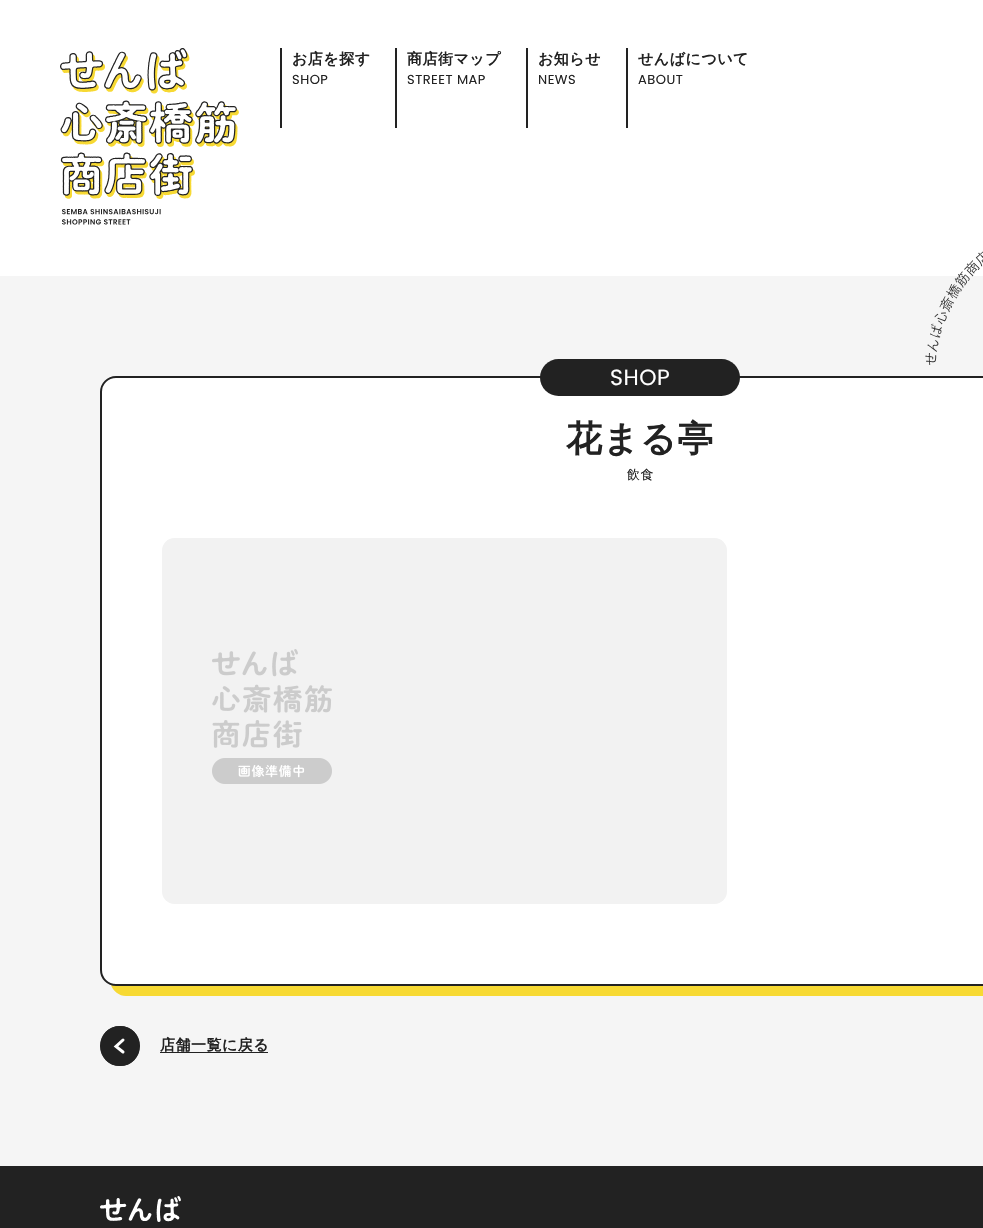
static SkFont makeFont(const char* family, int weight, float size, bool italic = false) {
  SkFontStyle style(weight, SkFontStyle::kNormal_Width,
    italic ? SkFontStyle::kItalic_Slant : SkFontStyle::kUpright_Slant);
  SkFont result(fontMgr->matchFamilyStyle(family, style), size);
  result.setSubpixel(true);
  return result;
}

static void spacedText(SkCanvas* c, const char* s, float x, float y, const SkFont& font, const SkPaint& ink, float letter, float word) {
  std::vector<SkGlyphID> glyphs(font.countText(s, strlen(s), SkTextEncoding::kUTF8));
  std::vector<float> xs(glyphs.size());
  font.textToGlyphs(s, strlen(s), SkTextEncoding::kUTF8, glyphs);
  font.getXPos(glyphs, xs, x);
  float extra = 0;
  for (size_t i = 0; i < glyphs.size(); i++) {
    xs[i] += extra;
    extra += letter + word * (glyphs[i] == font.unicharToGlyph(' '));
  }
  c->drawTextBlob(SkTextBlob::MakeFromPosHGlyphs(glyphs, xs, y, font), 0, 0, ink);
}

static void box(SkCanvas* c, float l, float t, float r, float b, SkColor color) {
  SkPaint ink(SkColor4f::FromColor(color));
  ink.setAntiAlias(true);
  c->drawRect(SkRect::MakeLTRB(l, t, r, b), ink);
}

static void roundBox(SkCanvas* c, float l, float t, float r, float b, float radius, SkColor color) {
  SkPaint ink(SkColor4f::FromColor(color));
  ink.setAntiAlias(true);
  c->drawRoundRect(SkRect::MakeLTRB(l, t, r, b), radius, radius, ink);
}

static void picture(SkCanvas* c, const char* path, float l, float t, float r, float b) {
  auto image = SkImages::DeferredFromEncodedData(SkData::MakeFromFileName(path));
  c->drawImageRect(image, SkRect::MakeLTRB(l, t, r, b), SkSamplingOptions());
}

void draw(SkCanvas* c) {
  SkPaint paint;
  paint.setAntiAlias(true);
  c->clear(0xffffffff);
  picture(c, "img_01.png", 60, 48, 239, 225);
  box(c, 280, 48, 282, 128, 0xff222222);
  SkFont face1 = makeFont("WenQuanYi Zen Hei", 700, 15);
  paint.setColor(0xff222222);
  spacedText(c, "お店を探す", 292, 64, face1, paint, 0.5f, 0);
  SkFont face2 = makeFont("Poppins", 400, 13);
  spacedText(c, "SHOP", 292, 84, face2, paint, 0.5f, 0);
  box(c, 395, 48, 397, 128, 0xff222222);
  spacedText(c, "商店街マップ", 407, 64, face1, paint, 0.5f, 0);
  spacedText(c, "STREET MAP", 407, 84, face2, paint, 0.5f, 0);
  box(c, 526, 48, 528, 128, 0xff222222);
  spacedText(c, "お知らせ", 538, 64, face1, paint, 0.5f, 0);
  spacedText(c, "NEWS", 538, 84, face2, paint, 0.5f, 0);
  box(c, 626, 48, 628, 128, 0xff222222);
  spacedText(c, "せんばについて", 638, 64, face1, paint, 0.5f, 0);
  spacedText(c, "ABOUT", 638, 84, face2, paint, 0.5f, 0);
  box(c, 0, 276, 983, 1166, 0xfff5f5f5);
  picture(c, "img_02.png", 925, 251, 983, 365);
  paint.setColor(0xfff7d933);
  c->drawPath(SkPathBuilder().moveTo(111, 985).cubicTo(113, 991, 119, 996, 126, 996).lineTo(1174, 996).cubicTo(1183, 996, 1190, 989, 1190, 980).lineTo(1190, 402).cubicTo(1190, 395, 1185, 389, 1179, 387).lineTo(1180, 392).lineTo(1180, 970).cubicTo(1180, 979, 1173, 986, 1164, 986).lineTo(116, 986).close().detach(), paint);
  paint.setColor(0xffffffff);
  c->drawRoundRect(SkRect::MakeLTRB(101, 377, 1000, 985), 15, 15, paint);
  paint.setStyle(SkPaint::kStroke_Style);
  paint.setStrokeWidth(2);
  paint.setColor(0xff222222);
  c->drawRoundRect(SkRect::MakeLTRB(101, 377, 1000, 985), 15, 15, paint);
  roundBox(c, 540, 359, 740, 396, 18.5f, 0xff222222);
  SkFont face3 = makeFont("Poppins", 400, 22);
  paint.setStyle(SkPaint::kFill_Style);
  paint.setColor(0xffffffff);
  spacedText(c, "SHOP", 610, 385, face3, paint, 0.5f, 0);
  SkFont face4 = makeFont("WenQuanYi Zen Hei", 700, 36);
  paint.setColor(0xff222222);
  spacedText(c, "花まる亭", 566, 451, face4, paint, 0.5f, 0);
  SkFont face5 = makeFont("WenQuanYi Zen Hei", 500, 13);
  spacedText(c, "飲食", 627, 479, face5, paint, 0.5f, 0);
  picture(c, "img_03.png", 162, 538, 727, 904);
  c->drawPath(SkPathBuilder().moveTo(120, 1026).cubicTo(94, 1026, 94, 1066, 120, 1066).cubicTo(146, 1066, 146, 1026, 120, 1026).close().detach(), paint);
  paint.setStyle(SkPaint::kStroke_Style);
  paint.setStrokeWidth(3);
  paint.setStrokeCap(SkPaint::kRound_Cap);
  paint.setColor(0xffffffff);
  c->drawPath(SkPathBuilder().moveTo(123, 1040).lineTo(116, 1046.5f).lineTo(123, 1052).detach(), paint);
  paint.setStrokeWidth(2);
  paint.setStrokeCap(SkPaint::kButt_Cap);
  paint.setColor(0xff222222);
  c->drawPath(SkPathBuilder().moveTo(120, 1027).cubicTo(109.5f, 1027, 101, 1035.5f, 101, 1046).cubicTo(101, 1056.5f, 109.5f, 1065, 120, 1065).cubicTo(130.5f, 1065, 139, 1056.5f, 139, 1046).cubicTo(139, 1035.5f, 130.5f, 1027, 120, 1027).close().detach(), paint);
  paint.setStyle(SkPaint::kFill_Style);
  spacedText(c, "店舗一覧に戻る", 160, 1050, face1, paint, 0.5f, 0);
  box(c, 160, 1052, 268, 1053, 0xff222222);
  box(c, 0, 1166, 983, 1228, 0xff222222);
  picture(c, "img_04.png", 100, 1196, 181, 1222);
}
